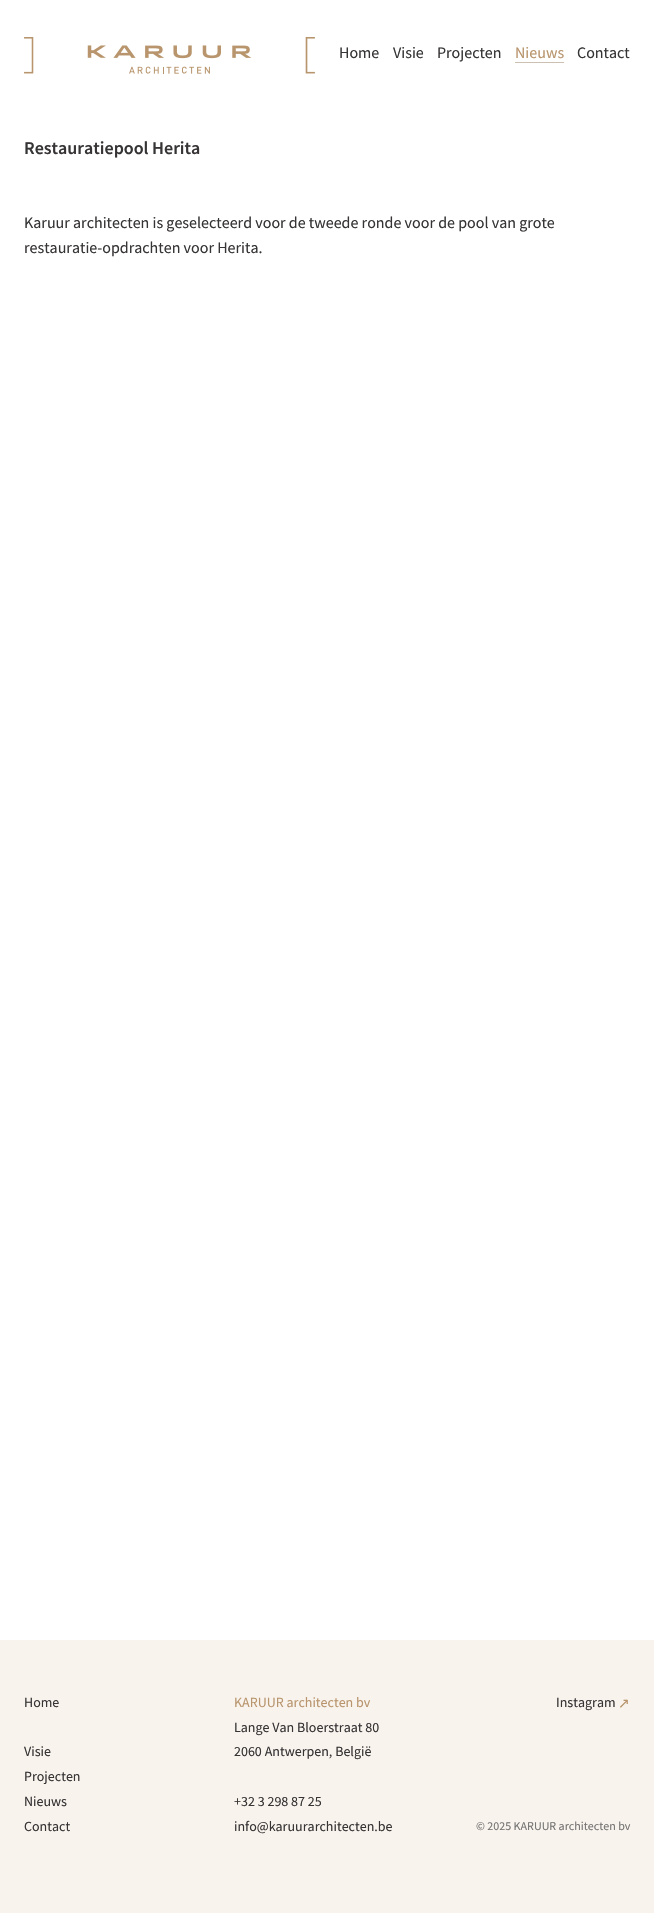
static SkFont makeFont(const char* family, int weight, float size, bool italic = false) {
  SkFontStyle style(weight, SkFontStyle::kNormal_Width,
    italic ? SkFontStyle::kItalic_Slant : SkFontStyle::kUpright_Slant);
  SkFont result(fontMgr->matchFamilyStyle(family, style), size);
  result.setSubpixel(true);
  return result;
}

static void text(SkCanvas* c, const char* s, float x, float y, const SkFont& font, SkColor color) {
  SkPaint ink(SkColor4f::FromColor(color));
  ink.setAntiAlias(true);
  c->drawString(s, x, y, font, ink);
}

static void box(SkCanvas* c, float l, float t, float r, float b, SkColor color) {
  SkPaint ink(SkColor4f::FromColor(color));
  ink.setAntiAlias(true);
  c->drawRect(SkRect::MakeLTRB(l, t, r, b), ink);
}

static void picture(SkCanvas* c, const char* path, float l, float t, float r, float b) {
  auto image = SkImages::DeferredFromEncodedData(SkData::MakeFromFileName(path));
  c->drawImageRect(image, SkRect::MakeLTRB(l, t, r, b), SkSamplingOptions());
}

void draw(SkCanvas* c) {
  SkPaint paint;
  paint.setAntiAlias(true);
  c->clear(0xffffffff);
  picture(c, "img_01.png", 24, 37, 315, 74);
  SkFont face1 = makeFont("Source Sans Pro", 400, 16);
  text(c, "Home", 339, 58, face1, 0xff363435);
  text(c, "Visie", 393, 58, face1, 0xff363435);
  text(c, "Projecten", 437, 58, face1, 0xff363435);
  text(c, "Nieuws", 515, 58, face1, 0xffb8956d);
  box(c, 515, 62, 564, 63, 0xffccc0b2);
  text(c, "Contact", 577, 58, face1, 0xff363435);
  SkFont face2 = makeFont("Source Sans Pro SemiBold", 600, 18);
  text(c, "Restauratiepool Herita", 24, 154, face2, 0xff363435);
  text(c, "Karuur architecten is geselecteerd voor de tweede ronde voor de pool van grote", 24, 228, face1, 0xff363435);
  text(c, "restauratie-opdrachten voor Herita.", 24, 253, face1, 0xff363435);
  box(c, 0, 1640, 654, 1913, 0xfff9f3ed);
  SkFont face3 = makeFont("Source Sans Pro", 400, 14);
  text(c, "Home", 24, 1707, face3, 0xff363435);
  text(c, "Visie", 24, 1756, face3, 0xff363435);
  text(c, "Projecten", 24, 1781, face3, 0xff363435);
  text(c, "Nieuws", 24, 1806, face3, 0xff363435);
  text(c, "Contact", 24, 1831, face3, 0xff363435);
  text(c, "KARUUR architecten bv", 234, 1707, face3, 0xffb8956d);
  text(c, "Lange Van Bloerstraat 80", 234, 1732, face3, 0xff363435);
  text(c, "2060 Antwerpen, België", 234, 1756, face3, 0xff363435);
  text(c, "+32 3 298 87 25", 234, 1806, face3, 0xff363435);
  text(c, "info@karuurarchitecten.be", 234, 1831, face3, 0xff363435);
  text(c, "Instagram", 556, 1707, face3, 0xff363435);
  SkFont face4 = makeFont("DejaVu Sans", 400, 14);
  text(c, "↗", 618, 1708, face4, 0xffb8956d);
  SkFont face5 = makeFont("Source Sans Pro", 400, 12);
  text(c, "© 2025 KARUUR architecten bv", 476, 1830, face5, 0xff737373);
}
